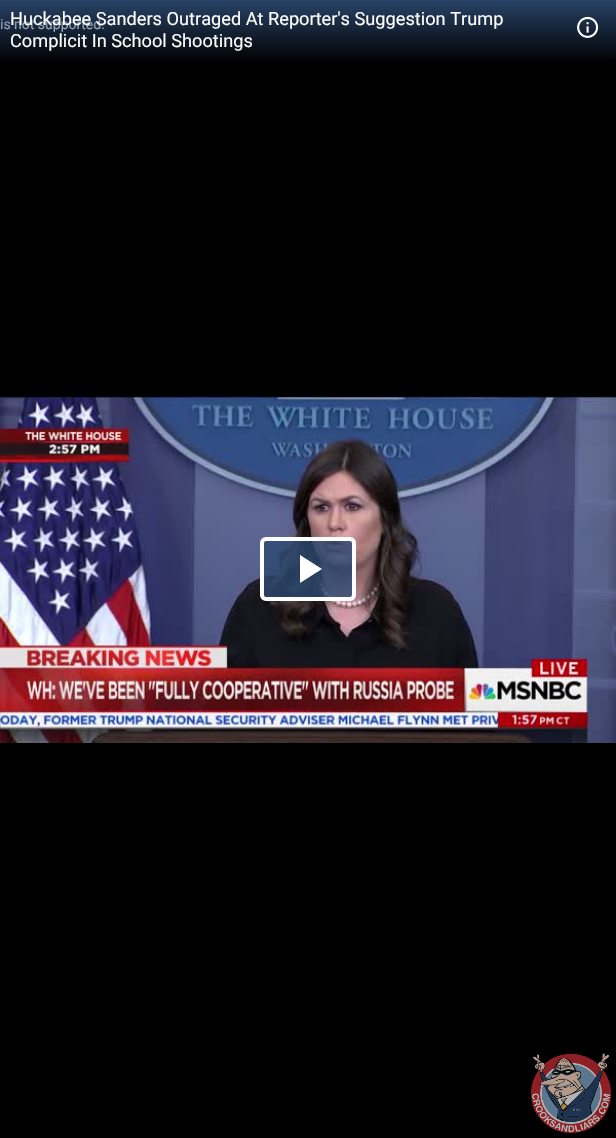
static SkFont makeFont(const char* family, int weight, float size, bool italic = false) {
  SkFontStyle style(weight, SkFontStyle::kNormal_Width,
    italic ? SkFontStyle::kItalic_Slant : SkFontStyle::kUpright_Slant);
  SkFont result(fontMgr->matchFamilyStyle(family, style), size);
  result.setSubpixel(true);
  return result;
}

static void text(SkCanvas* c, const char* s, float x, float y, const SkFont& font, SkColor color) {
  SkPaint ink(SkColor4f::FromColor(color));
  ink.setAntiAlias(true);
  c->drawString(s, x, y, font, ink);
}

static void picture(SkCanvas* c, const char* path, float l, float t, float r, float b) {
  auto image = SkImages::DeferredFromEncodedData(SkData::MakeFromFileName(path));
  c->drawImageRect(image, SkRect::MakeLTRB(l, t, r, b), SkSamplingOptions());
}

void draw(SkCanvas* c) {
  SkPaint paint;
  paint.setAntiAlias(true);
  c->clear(0xff000000);
  SkFont face1 = makeFont("Roboto", 400, 14);
  text(c, "is not supported.", 0, 29, face1, 0xffffffff);
  {
    const SkColor colors[] = {0xe62c4971, 0x0d2c4971};
    const float stops[] = {0.01f, 1};
    const SkPoint ends[] = {{308, 0}, {308, 60}};
    paint.setShader(SkGradientShader::MakeLinear(ends, colors, stops, 2, SkTileMode::kClamp));
    paint.setAlpha(255);
  }
  c->drawRect(SkRect::MakeLTRB(0, 0, 616, 60), paint);
  SkFont face2 = makeFont("Roboto", 400, 18.2f);
  text(c, "Huckabee Sanders Outraged At Reporter's Suggestion Trump", 10, 25, face2, 0xffffffff);
  text(c, "Complicit In School Shootings", 10, 47, face2, 0xffffffff);
  picture(c, "img_01.png", 577, 16, 599, 38);
  picture(c, "img_02.png", 0, 396, 616, 743);
  paint.setShader(nullptr);
  paint.setColor(0xcc2c4971);
  c->drawRoundRect(SkRect::MakeLTRB(262, 539, 354, 599), 4, 4, paint);
  paint.setStyle(SkPaint::kStroke_Style);
  paint.setStrokeWidth(4);
  paint.setColor(0xffffffff);
  c->drawRoundRect(SkRect::MakeLTRB(262, 539, 354, 599), 4, 4, paint);
  paint.setStyle(SkPaint::kFill_Style);
  c->drawPath(SkPathBuilder().moveTo(300, 555).lineTo(300, 583).lineTo(322, 569).close().detach(), paint);
  picture(c, "img_03.png", 531, 1053, 611, 1133);
}
